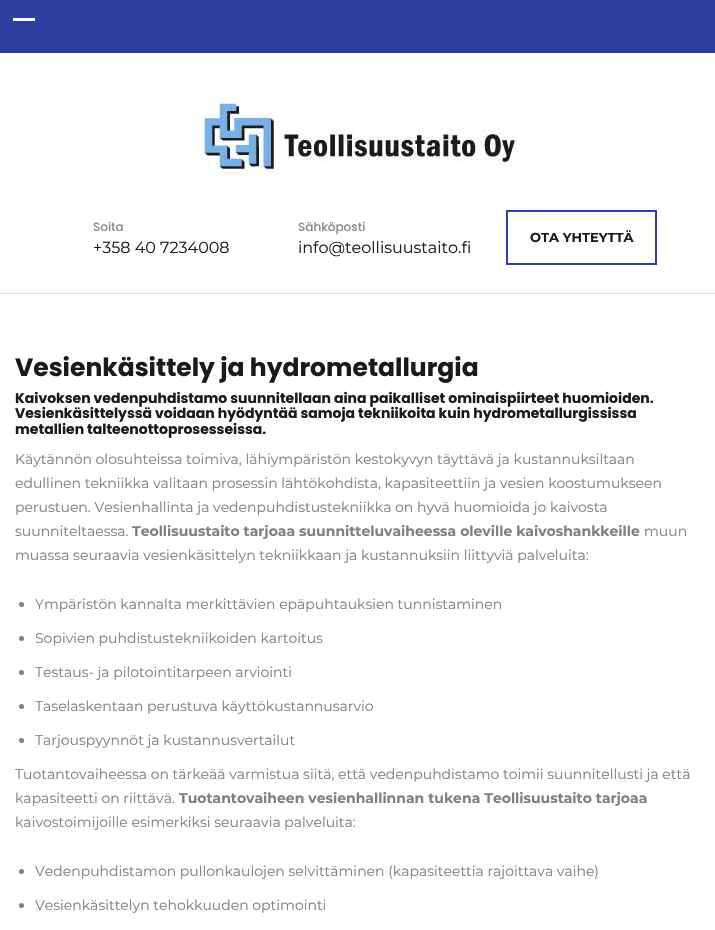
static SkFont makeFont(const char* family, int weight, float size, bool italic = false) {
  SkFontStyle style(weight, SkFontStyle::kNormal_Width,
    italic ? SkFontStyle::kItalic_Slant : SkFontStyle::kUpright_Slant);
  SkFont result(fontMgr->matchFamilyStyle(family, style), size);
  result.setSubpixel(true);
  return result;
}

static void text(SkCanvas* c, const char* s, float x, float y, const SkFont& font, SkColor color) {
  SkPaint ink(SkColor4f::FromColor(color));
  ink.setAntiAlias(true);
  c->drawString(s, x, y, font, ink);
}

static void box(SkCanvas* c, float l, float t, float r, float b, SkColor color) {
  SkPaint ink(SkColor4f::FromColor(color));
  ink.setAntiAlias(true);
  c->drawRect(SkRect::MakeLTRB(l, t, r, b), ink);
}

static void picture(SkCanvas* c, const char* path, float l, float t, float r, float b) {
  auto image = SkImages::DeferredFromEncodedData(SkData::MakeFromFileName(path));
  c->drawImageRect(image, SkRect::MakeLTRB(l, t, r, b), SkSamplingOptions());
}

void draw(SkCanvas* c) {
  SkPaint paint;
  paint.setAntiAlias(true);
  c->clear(0xffffffff);
  box(c, 0, 0, 715, 53, 0xff303f9f);
  box(c, 13, 18, 35, 21, 0xffffffff);
  box(c, 0, 293, 715, 294, 0xffdfdfdf);
  picture(c, "img_01.png", 195, 97, 521, 177);
  SkFont face1 = makeFont("Poppins", 500, 12);
  text(c, "Soita", 93, 231, face1, 0xff8b8b8b);
  SkFont face2 = makeFont("Montserrat", 400, 16);
  text(c, "+358 40 7234008", 93, 253, face2, 0xff1a1a1a);
  text(c, "Sähköposti", 298, 231, face1, 0xff8b8b8b);
  text(c, "info@teollisuustaito.fi", 298, 253, face2, 0xff1a1a1a);
  paint.setStyle(SkPaint::kStroke_Style);
  paint.setStrokeWidth(2);
  paint.setColor(0xff303f9f);
  c->drawRect(SkRect::MakeLTRB(507, 211, 656, 264), paint);
  SkFont face3 = makeFont("Montserrat", 700, 13);
  text(c, "OTA YHTEYTTÄ", 530, 242, face3, 0xff1a1a1a);
  SkFont face4 = makeFont("Poppins", 700, 25);
  text(c, "Vesienkäsittely ja hydrometallurgia", 15, 376, face4, 0xff1a1a1a);
  SkFont face5 = makeFont("Poppins", 700, 14);
  text(c, "Kaivoksen vedenpuhdistamo suunnitellaan aina paikalliset ominaispiirteet huomioiden.", 15, 403, face5, 0xff1a1a1a);
  text(c, "Vesienkäsittelyssä voidaan hyödyntää samoja tekniikoita kuin hydrometallurgississa", 15, 418, face5, 0xff1a1a1a);
  text(c, "metallien talteenottoprosesseissa.", 15, 434, face5, 0xff1a1a1a);
  SkFont face6 = makeFont("Montserrat", 400, 14);
  text(c, "Käytännön olosuhteissa toimiva, lähiympäristön kestokyvyn täyttävä ja kustannuksiltaan", 15, 464, face6, 0xff808080);
  text(c, "edullinen tekniikka valitaan prosessin lähtökohdista, kapasiteettiin ja vesien koostumukseen", 15, 488, face6, 0xff808080);
  text(c, "perustuen. Vesienhallinta ja vedenpuhdistustekniikka on hyvä huomioida jo kaivosta", 15, 512, face6, 0xff808080);
  text(c, "suunniteltaessa.", 15, 536, face6, 0xff808080);
  SkFont face7 = makeFont("Montserrat", 700, 14);
  text(c, "Teollisuustaito tarjoaa suunnitteluvaiheessa oleville kaivoshankkeille", 132, 536, face7, 0xff808080);
  text(c, "muun", 644, 536, face6, 0xff808080);
  text(c, "muassa seuraavia vesienkäsittelyn tekniikkaan ja kustannuksiin liittyviä palveluita:", 15, 560, face6, 0xff808080);
  paint.setStyle(SkPaint::kFill_Style);
  paint.setColor(0xff808080);
  c->drawCircle(21.5f, 604.5f, 2.5f, paint);
  text(c, "Ympäristön kannalta merkittävien epäpuhtauksien tunnistaminen", 35, 609, face6, 0xff808080);
  c->drawCircle(21.5f, 638.5f, 2.5f, paint);
  text(c, "Sopivien puhdistustekniikoiden kartoitus", 35, 643, face6, 0xff808080);
  c->drawCircle(21.5f, 672.5f, 2.5f, paint);
  text(c, "Testaus- ja pilotointitarpeen arviointi", 35, 677, face6, 0xff808080);
  c->drawCircle(21.5f, 706.5f, 2.5f, paint);
  text(c, "Taselaskentaan perustuva käyttökustannusarvio", 35, 711, face6, 0xff808080);
  c->drawCircle(21.5f, 740.5f, 2.5f, paint);
  text(c, "Tarjouspyynnöt ja kustannusvertailut", 35, 745, face6, 0xff808080);
  text(c, "Tuotantovaiheessa on tärkeää varmistua siitä, että vedenpuhdistamo toimii suunnitellusti ja että", 15, 779, face6, 0xff808080);
  text(c, "kapasiteetti on riittävä.", 15, 803, face6, 0xff808080);
  text(c, "Tuotantovaiheen vesienhallinnan tukena Teollisuustaito tarjoaa", 179, 803, face7, 0xff808080);
  text(c, "kaivostoimijoille esimerkiksi seuraavia palveluita:", 15, 827, face6, 0xff808080);
  c->drawCircle(21.5f, 871.5f, 2.5f, paint);
  text(c, "Vedenpuhdistamon pullonkaulojen selvittäminen (kapasiteettia rajoittava vaihe)", 35, 876, face6, 0xff808080);
  c->drawCircle(21.5f, 905.5f, 2.5f, paint);
  text(c, "Vesienkäsittelyn tehokkuuden optimointi", 35, 910, face6, 0xff808080);
}
